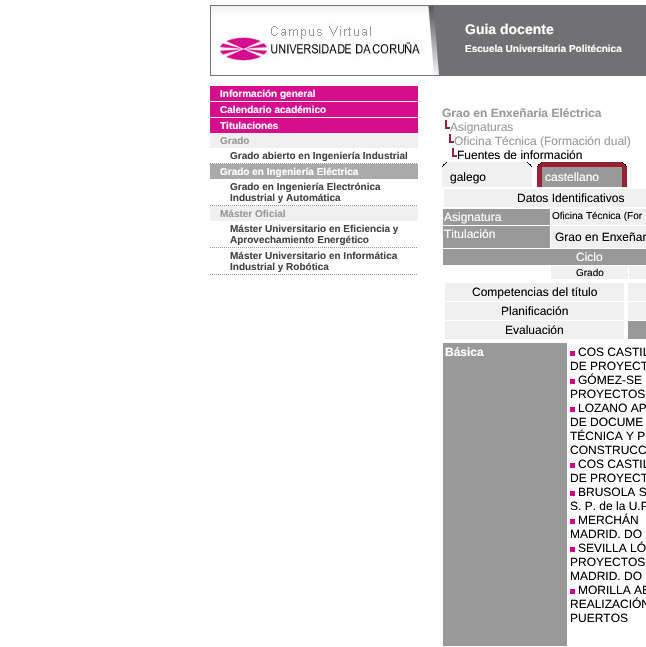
static SkFont makeFont(const char* family, int weight, float size, bool italic = false) {
  SkFontStyle style(weight, SkFontStyle::kNormal_Width,
    italic ? SkFontStyle::kItalic_Slant : SkFontStyle::kUpright_Slant);
  SkFont result(fontMgr->matchFamilyStyle(family, style), size);
  result.setSubpixel(true);
  return result;
}

static void text(SkCanvas* c, const char* s, float x, float y, const SkFont& font, SkColor color) {
  SkPaint ink(SkColor4f::FromColor(color));
  ink.setAntiAlias(true);
  c->drawString(s, x, y, font, ink);
}

static void box(SkCanvas* c, float l, float t, float r, float b, SkColor color) {
  SkPaint ink(SkColor4f::FromColor(color));
  ink.setAntiAlias(true);
  c->drawRect(SkRect::MakeLTRB(l, t, r, b), ink);
}

static void picture(SkCanvas* c, const char* path, float l, float t, float r, float b) {
  auto image = SkImages::DeferredFromEncodedData(SkData::MakeFromFileName(path));
  c->drawImageRect(image, SkRect::MakeLTRB(l, t, r, b), SkSamplingOptions());
}

void draw(SkCanvas* c) {
  SkPaint paint;
  paint.setAntiAlias(true);
  c->clear(0xffffffff);
  picture(c, "img_01.png", 210, 5, 646, 76);
  SkFont face1 = makeFont("Liberation Sans", 700, 14);
  text(c, "Guia docente", 465, 34, face1, 0xffffffff);
  SkFont face2 = makeFont("Liberation Sans", 700, 10);
  text(c, "Escuela Universitaria Politécnica", 465, 52, face2, 0xffffffff);
  box(c, 210, 101, 418, 221, 0xfff0f0f0);
  box(c, 210, 86, 418, 101, 0xffd60d8c);
  text(c, "Información general", 220, 97, face2, 0xffffffff);
  box(c, 210, 102, 418, 117, 0xffd60d8c);
  text(c, "Calendario académico", 220, 113, face2, 0xffffffff);
  box(c, 210, 118, 418, 133, 0xffd60d8c);
  text(c, "Titulaciones", 220, 129, face2, 0xffffffff);
  text(c, "Grado", 220, 144, face2, 0xff999999);
  box(c, 210, 148, 418, 164, 0xffffffff);
  paint.setStyle(SkPaint::kStroke_Style);
  paint.setStrokeWidth(1);
  paint.setColor(0xff999999);
  paint.setPathEffect(SkDashPathEffect::Make({{1, 1}}, 0));
  c->drawPath(SkPathBuilder().moveTo(210, 163.5f).lineTo(418, 163.5f).detach(), paint);
  paint.setPathEffect(nullptr);
  text(c, "Grado abierto en Ingeniería Industrial", 230, 159, face2, 0xff444444);
  box(c, 210, 164, 418, 179, 0xffaaaaaa);
  text(c, "Grado en Ingeniería Eléctrica", 220, 175, face2, 0xffffffff);
  box(c, 210, 179, 418, 206, 0xffffffff);
  paint.setPathEffect(SkDashPathEffect::Make({{1, 1}}, 0));
  c->drawPath(SkPathBuilder().moveTo(210, 205.5f).lineTo(418, 205.5f).detach(), paint);
  paint.setPathEffect(nullptr);
  text(c, "Grado en Ingeniería Electrónica", 230, 190, face2, 0xff444444);
  text(c, "Industrial y Automática", 230, 201, face2, 0xff444444);
  text(c, "Máster Oficial", 220, 217, face2, 0xff999999);
  paint.setPathEffect(SkDashPathEffect::Make({{1, 1}}, 0));
  c->drawPath(SkPathBuilder().moveTo(210, 247.5f).lineTo(418, 247.5f).detach(), paint);
  paint.setPathEffect(nullptr);
  text(c, "Máster Universitario en Eficiencia y", 230, 232, face2, 0xff444444);
  text(c, "Aprovechamiento Energético", 230, 243, face2, 0xff444444);
  paint.setPathEffect(SkDashPathEffect::Make({{1, 1}}, 0));
  c->drawPath(SkPathBuilder().moveTo(210, 274.5f).lineTo(418, 274.5f).detach(), paint);
  paint.setPathEffect(nullptr);
  text(c, "Máster Universitario en Informática", 230, 259, face2, 0xff444444);
  text(c, "Industrial y Robótica", 230, 270, face2, 0xff444444);
  SkFont face3 = makeFont("Liberation Sans", 700, 12);
  text(c, "Grao en Enxeñaría Eléctrica", 442, 117, face3, 0xff999999);
  picture(c, "img_02.png", 445, 120, 450, 129);
  SkFont face4 = makeFont("Liberation Sans", 400, 12);
  text(c, "Asignaturas", 450, 131, face4, 0xff999999);
  picture(c, "img_02.png", 449, 134, 454, 143);
  text(c, "Oficina Técnica (Formación dual)", 454, 145, face4, 0xff999999);
  picture(c, "img_02.png", 452, 148, 457, 157);
  text(c, "Fuentes de información", 457, 159, face4, 0xff000000);
  picture(c, "img_03.png", 442, 162, 447, 167);
  box(c, 447, 162, 527, 167, 0xfff0f0f0);
  picture(c, "img_04.png", 527, 162, 532, 167);
  box(c, 442, 167, 532, 187, 0xfff0f0f0);
  text(c, "galego", 450, 181, face4, 0xff000000);
  picture(c, "img_05.png", 537, 162, 542, 167);
  box(c, 542, 162, 622, 167, 0xff992135);
  picture(c, "img_06.png", 622, 162, 627, 167);
  box(c, 537, 167, 542, 187, 0xff992135);
  box(c, 542, 167, 622, 187, 0xff999999);
  text(c, "castellano", 545, 181, face4, 0xffffffff);
  box(c, 622, 167, 627, 187, 0xff992135);
  box(c, 444, 189, 646, 207, 0xfff0f0f0);
  text(c, "Datos Identificativos", 517, 202, face4, 0xff000000);
  box(c, 443, 209, 550, 225, 0xff999999);
  text(c, "Asignatura", 444, 221, face4, 0xffffffff);
  box(c, 551, 209, 646, 225, 0xfff0f0f0);
  SkFont face5 = makeFont("Liberation Sans", 400, 10);
  text(c, "Oficina Técnica (For", 552, 219, face5, 0xff000000);
  box(c, 443, 226, 550, 248, 0xff999999);
  text(c, "Titulación", 444, 238, face4, 0xffffffff);
  box(c, 551, 226, 646, 248, 0xfff0f0f0);
  text(c, "Grao en Enxeñar", 555, 241, face4, 0xff000000);
  box(c, 443, 249, 646, 265, 0xff999999);
  text(c, "Ciclo", 576, 261, face4, 0xffffffff);
  box(c, 551, 266, 628, 279, 0xfff0f0f0);
  text(c, "Grado", 576, 276, face5, 0xff000000);
  box(c, 629, 266, 646, 279, 0xfff0f0f0);
  box(c, 445, 283, 624, 301, 0xfff0f0f0);
  text(c, "Competencias del título", 472, 296, face4, 0xff000000);
  box(c, 628, 283, 646, 301, 0xfff0f0f0);
  box(c, 445, 302, 624, 320, 0xfff0f0f0);
  text(c, "Planificación", 501, 315, face4, 0xff000000);
  box(c, 628, 302, 646, 320, 0xfff0f0f0);
  box(c, 445, 321, 624, 339, 0xfff0f0f0);
  text(c, "Evaluación", 505, 334, face4, 0xff000000);
  box(c, 628, 321, 646, 339, 0xff999999);
  box(c, 443, 343, 567, 646, 0xff999999);
  text(c, "Básica", 445, 356, face3, 0xffffffff);
  box(c, 570, 351, 575, 356, 0xffcc0099);
  text(c, "COS CASTIL", 578, 356, face4, 0xff000000);
  text(c, "DE PROYECT", 570, 370, face4, 0xff000000);
  box(c, 570, 379, 575, 384, 0xffcc0099);
  text(c, "GÓMEZ-SE", 578, 384, face4, 0xff000000);
  text(c, "PROYECTOS", 570, 398, face4, 0xff000000);
  box(c, 570, 407, 575, 412, 0xffcc0099);
  text(c, "LOZANO AP", 578, 412, face4, 0xff000000);
  text(c, "DE DOCUME", 570, 426, face4, 0xff000000);
  text(c, "TÉCNICA Y P", 570, 440, face4, 0xff000000);
  text(c, "CONSTRUCC", 570, 454, face4, 0xff000000);
  box(c, 570, 463, 575, 468, 0xffcc0099);
  text(c, "COS CASTIL", 578, 468, face4, 0xff000000);
  text(c, "DE PROYECT", 570, 482, face4, 0xff000000);
  box(c, 570, 491, 575, 496, 0xffcc0099);
  text(c, "BRUSOLA S", 578, 496, face4, 0xff000000);
  text(c, "S. P. de la U.P", 570, 510, face4, 0xff000000);
  box(c, 570, 519, 575, 524, 0xffcc0099);
  text(c, "MERCHÁN", 578, 524, face4, 0xff000000);
  text(c, "MADRID. DO", 570, 538, face4, 0xff000000);
  box(c, 570, 547, 575, 552, 0xffcc0099);
  text(c, "SEVILLA LÓ", 578, 552, face4, 0xff000000);
  text(c, "PROYECTOS", 570, 566, face4, 0xff000000);
  text(c, "MADRID. DO", 570, 580, face4, 0xff000000);
  box(c, 570, 589, 575, 594, 0xffcc0099);
  text(c, "MORILLA AB", 578, 594, face4, 0xff000000);
  text(c, "REALIZACIÓN", 570, 608, face4, 0xff000000);
  text(c, "PUERTOS", 570, 622, face4, 0xff000000);
}
